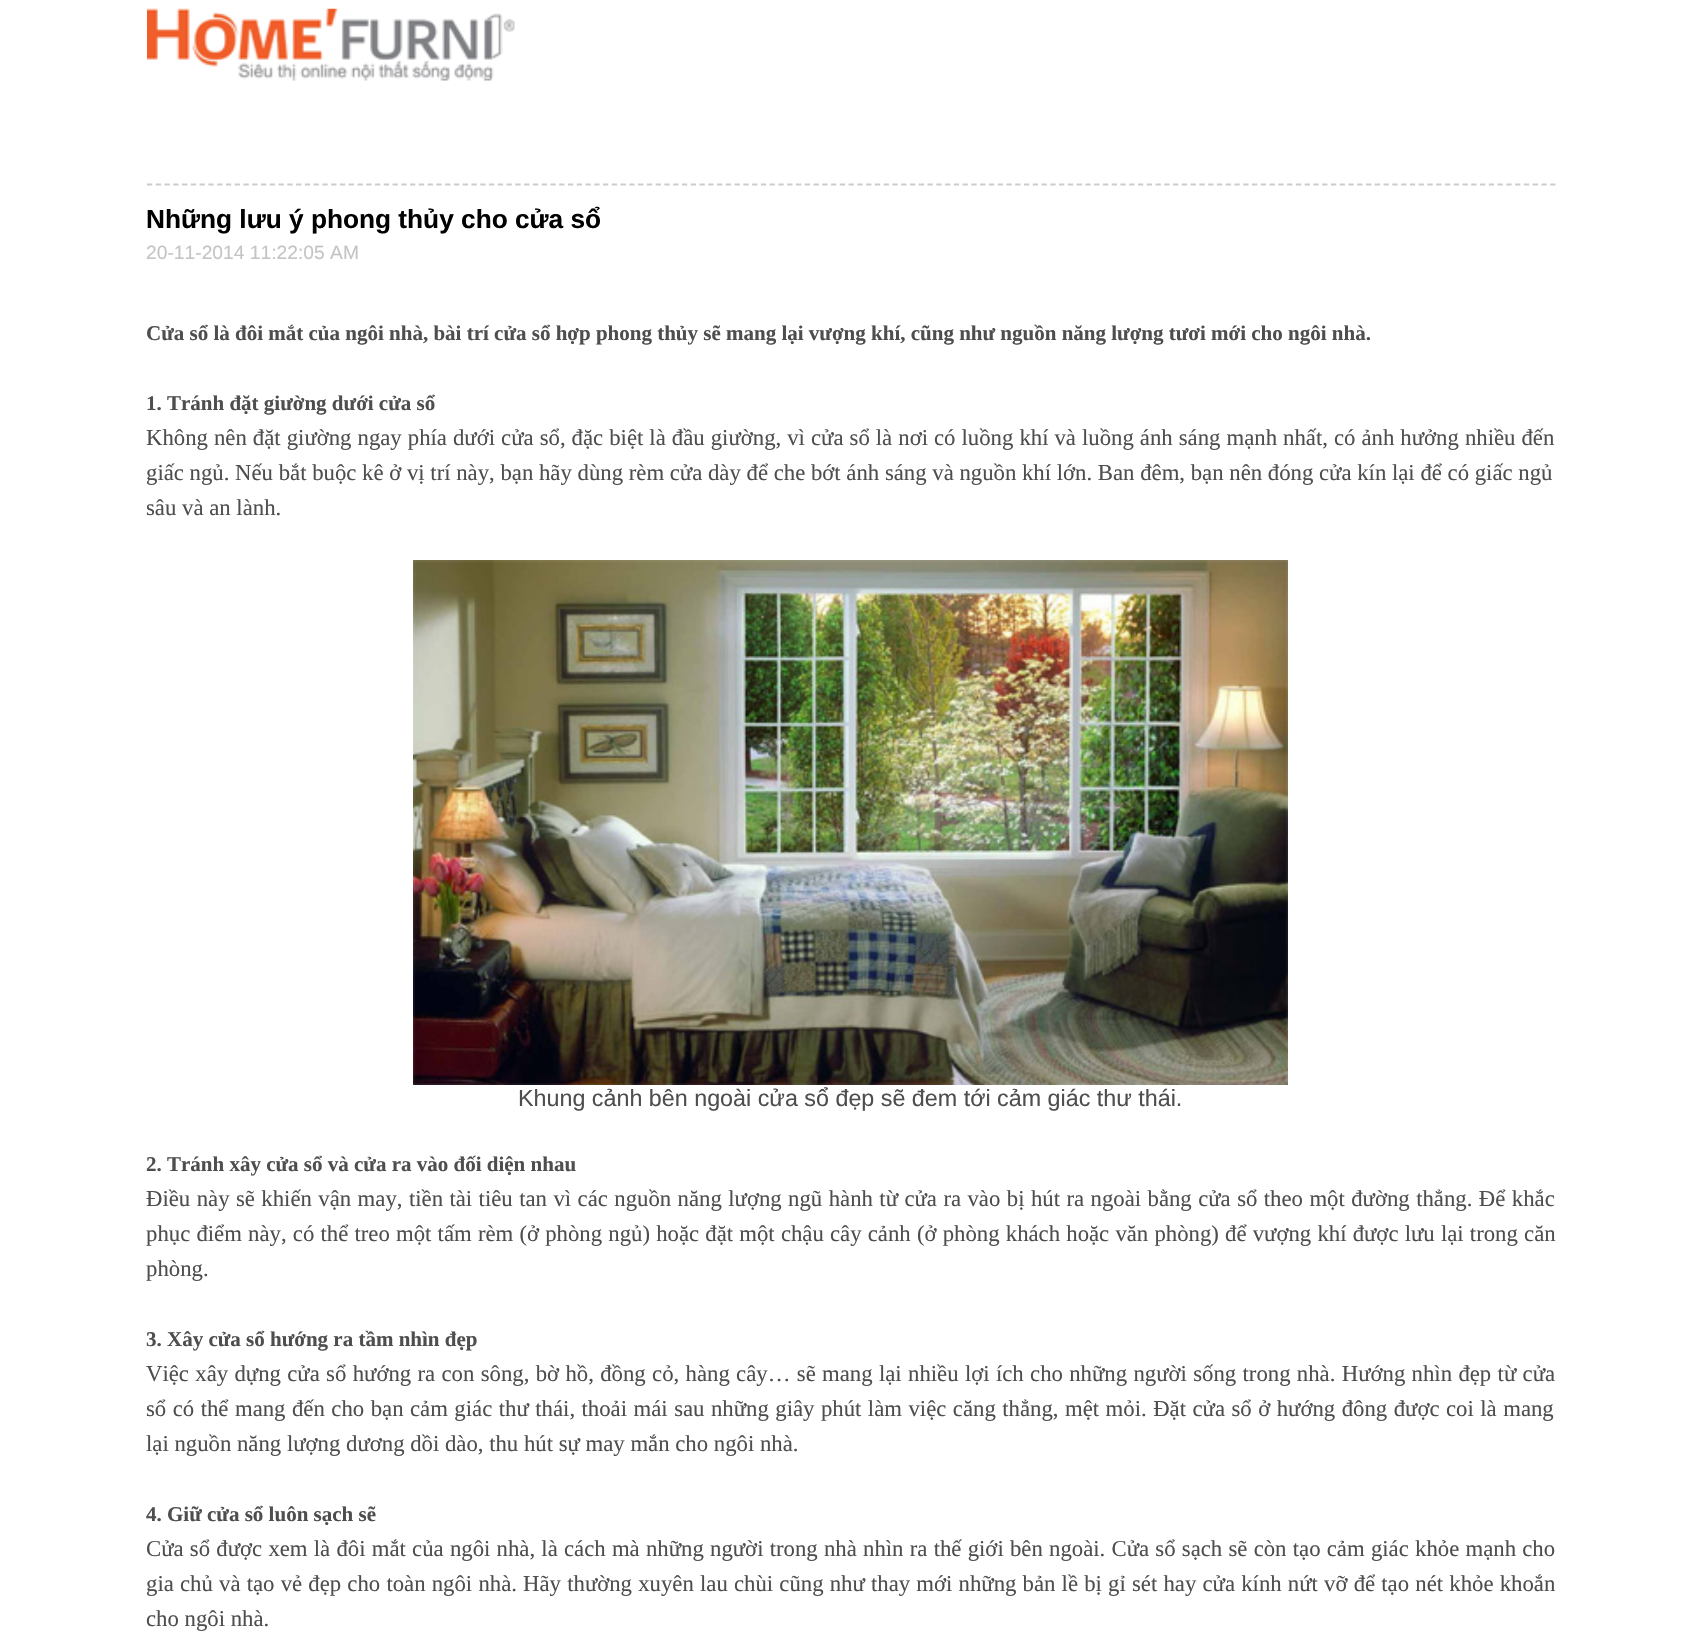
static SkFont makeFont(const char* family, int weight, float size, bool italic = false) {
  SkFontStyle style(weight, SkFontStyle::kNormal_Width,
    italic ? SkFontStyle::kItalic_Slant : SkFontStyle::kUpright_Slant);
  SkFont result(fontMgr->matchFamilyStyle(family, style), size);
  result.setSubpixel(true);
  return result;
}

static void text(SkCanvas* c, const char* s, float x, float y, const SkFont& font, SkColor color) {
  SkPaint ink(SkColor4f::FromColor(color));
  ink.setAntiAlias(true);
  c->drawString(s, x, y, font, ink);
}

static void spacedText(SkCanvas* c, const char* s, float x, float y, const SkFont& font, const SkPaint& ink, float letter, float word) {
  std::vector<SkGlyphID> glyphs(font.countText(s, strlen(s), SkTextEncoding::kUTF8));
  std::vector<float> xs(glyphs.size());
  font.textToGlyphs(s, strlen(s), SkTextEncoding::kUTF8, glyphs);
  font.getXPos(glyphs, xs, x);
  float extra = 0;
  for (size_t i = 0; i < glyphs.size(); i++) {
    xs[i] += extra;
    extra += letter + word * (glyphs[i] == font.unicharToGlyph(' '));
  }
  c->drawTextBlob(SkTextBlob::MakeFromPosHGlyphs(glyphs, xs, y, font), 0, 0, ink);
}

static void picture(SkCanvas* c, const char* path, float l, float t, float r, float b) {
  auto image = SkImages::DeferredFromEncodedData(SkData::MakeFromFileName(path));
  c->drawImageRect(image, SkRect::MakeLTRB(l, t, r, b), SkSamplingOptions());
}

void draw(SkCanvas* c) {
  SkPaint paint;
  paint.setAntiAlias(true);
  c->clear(0xffffffff);
  picture(c, "img_01.png", 147, 8, 515, 81);
  paint.setStyle(SkPaint::kStroke_Style);
  paint.setStrokeWidth(1.8f);
  paint.setColor(0xffcccccc);
  paint.setPathEffect(SkDashPathEffect::Make({{5.25f, 3.52f}}, 0));
  c->drawPath(SkPathBuilder().moveTo(147, 184.5f).lineTo(1556, 184.5f).detach(), paint);
  paint.setPathEffect(nullptr);
  SkFont face1 = makeFont("Liberation Sans", 700, 26.25f);
  text(c, "Những lưu ý phong thủy cho cửa sổ", 146, 228, face1, 0xff000000);
  SkFont face2 = makeFont("Liberation Sans", 400, 19.25f);
  text(c, "20-11-2014 11:22:05 AM", 146, 259, face2, 0xffc4c4c4);
  SkFont face3 = makeFont("Liberation Serif", 700, 21);
  text(c, "Cửa sổ là đôi mắt của ngôi nhà, bài trí cửa sổ hợp phong thủy sẽ mang lại vượng khí, cũng như nguồn năng lượng tươi mới cho ngôi nhà.", 146, 340, face3, 0xff4e4e4e);
  text(c, "1. Tránh đặt giường dưới cửa sổ", 146, 410, face3, 0xff4e4e4e);
  SkFont face4 = makeFont("Liberation Serif", 400, 22.75f);
  paint.setStyle(SkPaint::kFill_Style);
  paint.setColor(0xff4e4e4e);
  spacedText(c, "Không nên đặt giường ngay phía dưới cửa sổ, đặc biệt là đầu giường, vì cửa sổ là nơi có luồng khí và luồng ánh sáng mạnh nhất, có ảnh hưởng nhiều đến", 146, 445, face4, paint, 0, 0.35f);
  text(c, "giấc ngủ. Nếu bắt buộc kê ở vị trí này, bạn hãy dùng rèm cửa dày để che bớt ánh sáng và nguồn khí lớn. Ban đêm, bạn nên đóng cửa kín lại để có giấc ngủ", 146, 480, face4, 0xff4e4e4e);
  text(c, "sâu và an lành.", 146, 515, face4, 0xff4e4e4e);
  picture(c, "img_02.png", 413, 560, 1288, 1085);
  SkFont face5 = makeFont("Liberation Sans", 400, 23.3f);
  text(c, "Khung cảnh bên ngoài cửa sổ đẹp sẽ đem tới cảm giác thư thái.", 518, 1106, face5, 0xff4e4e4e);
  text(c, "2. Tránh xây cửa sổ và cửa ra vào đối diện nhau", 146, 1171, face3, 0xff4e4e4e);
  spacedText(c, "Điều này sẽ khiến vận may, tiền tài tiêu tan vì các nguồn năng lượng ngũ hành từ cửa ra vào bị hút ra ngoài bằng cửa sổ theo một đường thẳng. Để khắc", 146, 1206, face4, paint, 0, 0.75f);
  spacedText(c, "phục điểm này, có thể treo một tấm rèm (ở phòng ngủ) hoặc đặt một chậu cây cảnh (ở phòng khách hoặc văn phòng) để vượng khí được lưu lại trong căn", 146, 1241, face4, paint, 0, 0.5f);
  text(c, "phòng.", 146, 1276, face4, 0xff4e4e4e);
  text(c, "3. Xây cửa sổ hướng ra tầm nhìn đẹp", 146, 1346, face3, 0xff4e4e4e);
  spacedText(c, "Việc xây dựng cửa sổ hướng ra con sông, bờ hồ, đồng cỏ, hàng cây… sẽ mang lại nhiều lợi ích cho những người sống trong nhà. Hướng nhìn đẹp từ cửa", 146, 1381, face4, paint, 0, 0.65f);
  spacedText(c, "sổ có thể mang đến cho bạn cảm giác thư thái, thoải mái sau những giây phút làm việc căng thẳng, mệt mỏi. Đặt cửa sổ ở hướng đông được coi là mang", 146, 1416, face4, paint, 0, 0.8f);
  text(c, "lại nguồn năng lượng dương dồi dào, thu hút sự may mắn cho ngôi nhà.", 146, 1451, face4, 0xff4e4e4e);
  text(c, "4. Giữ cửa sổ luôn sạch sẽ", 146, 1521, face3, 0xff4e4e4e);
  spacedText(c, "Cửa sổ được xem là đôi mắt của ngôi nhà, là cách mà những người trong nhà nhìn ra thế giới bên ngoài. Cửa sổ sạch sẽ còn tạo cảm giác khỏe mạnh cho", 146, 1556, face4, paint, 0, 0.55f);
  spacedText(c, "gia chủ và tạo vẻ đẹp cho toàn ngôi nhà. Hãy thường xuyên lau chùi cũng như thay mới những bản lề bị gỉ sét hay cửa kính nứt vỡ để tạo nét khỏe khoắn", 146, 1591, face4, paint, 0, 0.5f);
  text(c, "cho ngôi nhà.", 146, 1626, face4, 0xff4e4e4e);
}
